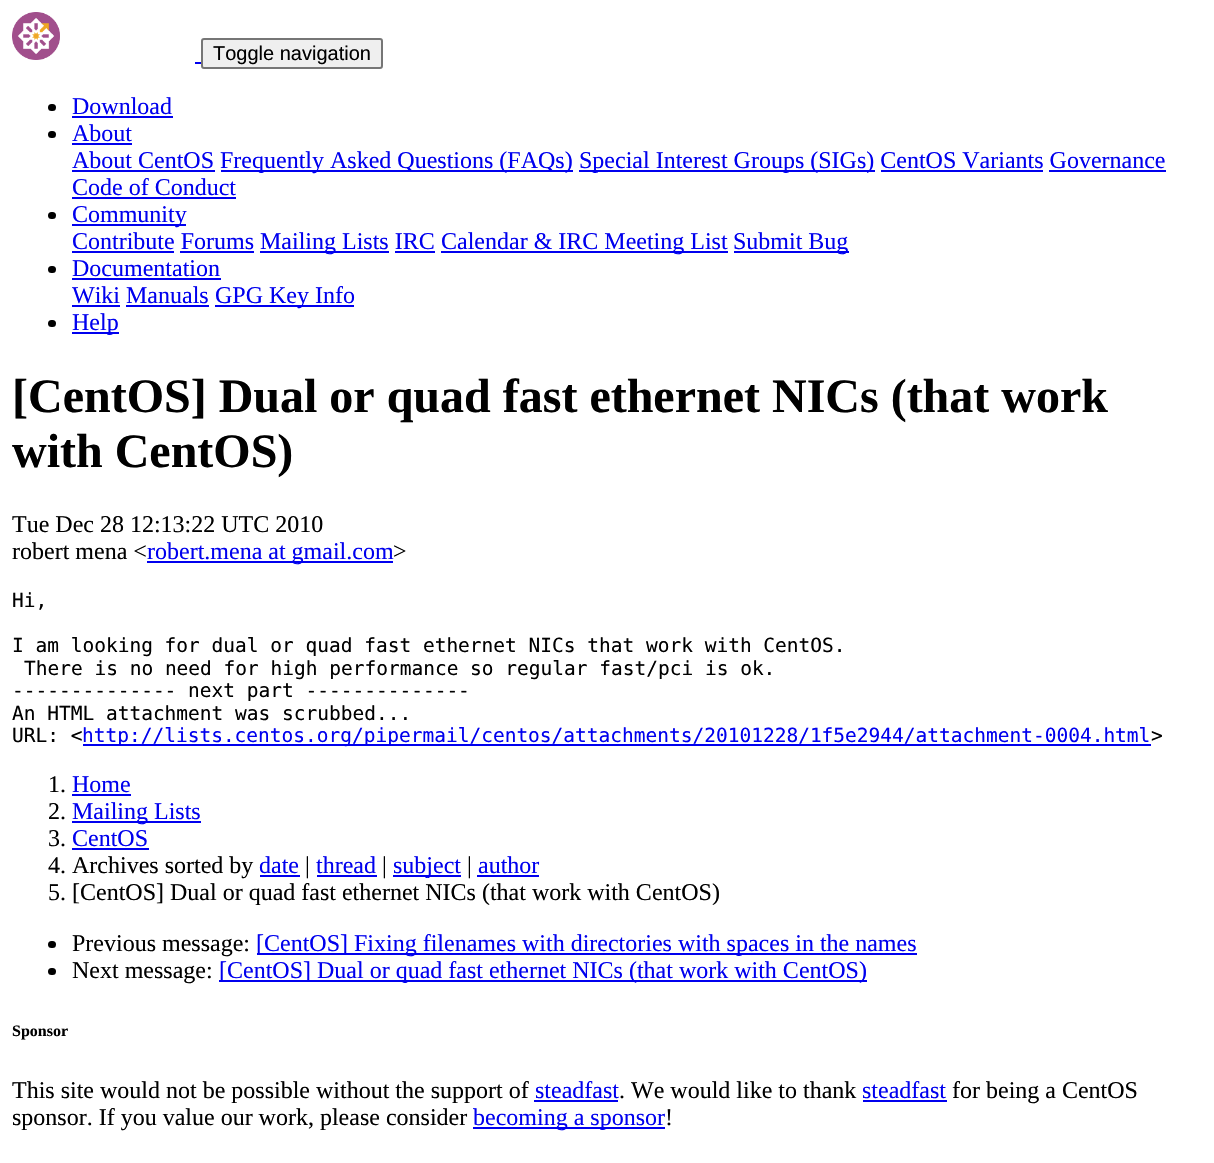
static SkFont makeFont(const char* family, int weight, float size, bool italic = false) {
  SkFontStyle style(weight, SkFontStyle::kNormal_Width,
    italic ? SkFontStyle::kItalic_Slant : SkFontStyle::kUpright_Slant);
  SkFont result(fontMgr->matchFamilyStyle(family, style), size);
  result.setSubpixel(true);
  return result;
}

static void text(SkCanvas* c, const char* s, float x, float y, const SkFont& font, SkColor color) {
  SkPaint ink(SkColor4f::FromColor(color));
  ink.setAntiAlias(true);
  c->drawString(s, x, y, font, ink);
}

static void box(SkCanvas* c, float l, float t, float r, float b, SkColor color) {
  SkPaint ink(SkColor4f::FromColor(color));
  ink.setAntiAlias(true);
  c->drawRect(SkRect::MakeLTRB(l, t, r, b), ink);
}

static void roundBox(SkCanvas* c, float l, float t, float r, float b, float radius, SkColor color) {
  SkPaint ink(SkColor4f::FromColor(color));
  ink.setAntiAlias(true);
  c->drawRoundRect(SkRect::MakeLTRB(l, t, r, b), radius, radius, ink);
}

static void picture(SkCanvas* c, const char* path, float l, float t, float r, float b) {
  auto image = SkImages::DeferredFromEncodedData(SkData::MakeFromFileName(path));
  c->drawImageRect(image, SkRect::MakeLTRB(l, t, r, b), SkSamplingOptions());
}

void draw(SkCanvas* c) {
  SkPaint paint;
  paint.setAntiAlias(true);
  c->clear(0xffffffff);
  picture(c, "img_01.png", 12, 12, 60, 60);
  box(c, 195, 62, 201, 64, 0xff0000ee);
  paint.setColor(0xffefefef);
  c->drawRoundRect(SkRect::MakeLTRB(202, 39, 382, 68), 2, 2, paint);
  paint.setStyle(SkPaint::kStroke_Style);
  paint.setStrokeWidth(2);
  paint.setColor(0xff767676);
  c->drawRoundRect(SkRect::MakeLTRB(202, 39, 382, 68), 2, 2, paint);
  SkFont face1 = makeFont("Liberation Sans", 400, 20);
  text(c, "Toggle navigation", 213, 60, face1, 0xff000000);
  roundBox(c, 48, 104, 56, 111, 3.5f, 0xff000000);
  SkFont face2 = makeFont("Liberation Serif", 400, 24);
  text(c, "Download", 72, 114, face2, 0xff0000ee);
  box(c, 72, 116, 173, 118, 0xff0000ee);
  roundBox(c, 48, 131, 56, 138, 3.5f, 0xff000000);
  text(c, "About", 72, 141, face2, 0xff0000ee);
  box(c, 72, 143, 132, 145, 0xff0000ee);
  text(c, "About CentOS", 72, 168, face2, 0xff0000ee);
  box(c, 72, 170, 215, 172, 0xff0000ee);
  box(c, 221, 170, 573, 172, 0xff0000ee);
  text(c, "Frequently Asked Questions (FAQs)", 220, 168, face2, 0xff0000ee);
  box(c, 579, 170, 875, 172, 0xff0000ee);
  text(c, "Special Interest Groups (SIGs) CentOS Variants Governance", 579, 168, face2, 0xff0000ee);
  box(c, 881, 170, 1043, 172, 0xff0000ee);
  box(c, 1049, 170, 1166, 172, 0xff0000ee);
  text(c, "Code of Conduct", 72, 195, face2, 0xff0000ee);
  box(c, 72, 197, 236, 199, 0xff0000ee);
  roundBox(c, 48, 212, 56, 219, 3.5f, 0xff000000);
  box(c, 72, 224, 186, 226, 0xff0000ee);
  text(c, "Community", 72, 222, face2, 0xff0000ee);
  text(c, "Contribute Forums", 72, 249, face2, 0xff0000ee);
  box(c, 72, 251, 174, 253, 0xff0000ee);
  box(c, 260, 251, 389, 253, 0xff0000ee);
  text(c, "Mailing Lists IRC", 260, 249, face2, 0xff0000ee);
  box(c, 441, 251, 728, 253, 0xff0000ee);
  text(c, "Calendar & IRC Meeting List", 441, 249, face2, 0xff0000ee);
  box(c, 734, 251, 849, 253, 0xff0000ee);
  text(c, "Submit Bug", 733, 249, face2, 0xff0000ee);
  box(c, 180, 251, 254, 253, 0xff0000ee);
  box(c, 395, 251, 435, 253, 0xff0000ee);
  roundBox(c, 48, 266, 56, 273, 3.5f, 0xff000000);
  text(c, "Documentation", 72, 276, face2, 0xff0000ee);
  box(c, 72, 278, 221, 280, 0xff0000ee);
  text(c, "Wiki Manuals", 72, 303, face2, 0xff0000ee);
  box(c, 72, 305, 120, 307, 0xff0000ee);
  box(c, 215, 305, 354, 307, 0xff0000ee);
  text(c, "GPG Key Info", 215, 303, face2, 0xff0000ee);
  box(c, 126, 305, 209, 307, 0xff0000ee);
  roundBox(c, 48, 320, 56, 327, 3.5f, 0xff000000);
  box(c, 72, 332, 119, 334, 0xff0000ee);
  text(c, "Help", 72, 330, face2, 0xff0000ee);
  SkFont face3 = makeFont("Liberation Serif", 700, 48);
  text(c, "[CentOS] Dual or quad fast ethernet NICs (that work", 12, 412, face3, 0xff000000);
  text(c, "with CentOS)", 12, 467, face3, 0xff000000);
  text(c, "Tue Dec 28 12:13:22 UTC 2010", 12, 532, face2, 0xff000000);
  text(c, "robert mena <", 12, 559, face2, 0xff000000);
  box(c, 147, 561, 393, 563, 0xff0000ee);
  text(c, "robert.mena at gmail.com", 147, 559, face2, 0xff0000ee);
  text(c, ">", 393, 559, face2, 0xff000000);
  SkFont face4 = makeFont("DejaVu Sans Mono", 400, 19.5f);
  text(c, "Hi,", 12, 607, face4, 0xff000000);
  text(c, "I am looking for dual or quad fast ethernet NICs that work with CentOS.", 12, 652, face4, 0xff000000);
  text(c, "There is no need for high performance so regular fast/pci is ok.", 24, 675, face4, 0xff000000);
  text(c, "-------------- next part --------------", 12, 697, face4, 0xff000000);
  text(c, "An HTML attachment was scrubbed...", 12, 720, face4, 0xff000000);
  text(c, "URL: <", 12, 742, face4, 0xff000000);
  box(c, 83, 744, 1151, 746, 0xff0000ee);
  text(c, "http://lists.centos.org/pipermail/centos/attachments/20101228/1f5e2944/attachment-0004.html", 82, 742, face4, 0xff0000ee);
  text(c, ">", 1151, 742, face4, 0xff000000);
  text(c, "1.", 48, 792, face2, 0xff000000);
  text(c, "Home", 72, 792, face2, 0xff0000ee);
  box(c, 72, 794, 131, 796, 0xff0000ee);
  text(c, "2.", 48, 819, face2, 0xff000000);
  box(c, 72, 821, 201, 823, 0xff0000ee);
  text(c, "Mailing Lists", 72, 819, face2, 0xff0000ee);
  text(c, "3.", 48, 846, face2, 0xff000000);
  text(c, "CentOS", 72, 846, face2, 0xff0000ee);
  box(c, 72, 848, 149, 850, 0xff0000ee);
  text(c, "4. Archives sorted by", 48, 873, face2, 0xff000000);
  text(c, "date", 259, 873, face2, 0xff0000ee);
  box(c, 260, 875, 300, 877, 0xff0000ee);
  text(c, "|", 305, 873, face2, 0xff000000);
  text(c, "thread", 316, 873, face2, 0xff0000ee);
  box(c, 317, 875, 377, 877, 0xff0000ee);
  text(c, "|", 382, 873, face2, 0xff000000);
  box(c, 393, 875, 461, 877, 0xff0000ee);
  text(c, "subject", 393, 873, face2, 0xff0000ee);
  text(c, "|", 467, 873, face2, 0xff000000);
  text(c, "author", 478, 873, face2, 0xff0000ee);
  box(c, 477, 875, 539, 877, 0xff0000ee);
  text(c, "5. [CentOS] Dual or quad fast ethernet NICs (that work with CentOS)", 48, 900, face2, 0xff000000);
  roundBox(c, 48, 941, 56, 948, 3.5f, 0xff000000);
  text(c, "Previous message:", 72, 951, face2, 0xff000000);
  box(c, 257, 953, 917, 955, 0xff0000ee);
  text(c, "[CentOS] Fixing filenames with directories with spaces in the names", 256, 951, face2, 0xff0000ee);
  roundBox(c, 48, 968, 56, 975, 3.5f, 0xff000000);
  text(c, "Next message:", 72, 978, face2, 0xff000000);
  box(c, 219, 980, 867, 982, 0xff0000ee);
  text(c, "[CentOS] Dual or quad fast ethernet NICs (that work with CentOS)", 219, 978, face2, 0xff0000ee);
  SkFont face5 = makeFont("Liberation Serif", 700, 16);
  text(c, "Sponsor", 12, 1036, face5, 0xff000000);
  text(c, "This site would not be possible without the support of", 12, 1098, face2, 0xff000000);
  text(c, "steadfast", 535, 1098, face2, 0xff0000ee);
  box(c, 534, 1100, 618, 1102, 0xff0000ee);
  text(c, ". We would like to thank", 619, 1098, face2, 0xff000000);
  text(c, "steadfast", 862, 1098, face2, 0xff0000ee);
  box(c, 863, 1100, 947, 1102, 0xff0000ee);
  text(c, "for being a CentOS", 952, 1098, face2, 0xff000000);
  text(c, "sponsor. If you value our work, please consider", 12, 1125, face2, 0xff000000);
  box(c, 473, 1127, 665, 1129, 0xff0000ee);
  text(c, "becoming a sponsor", 473, 1125, face2, 0xff0000ee);
  text(c, "!", 665, 1125, face2, 0xff000000);
}
